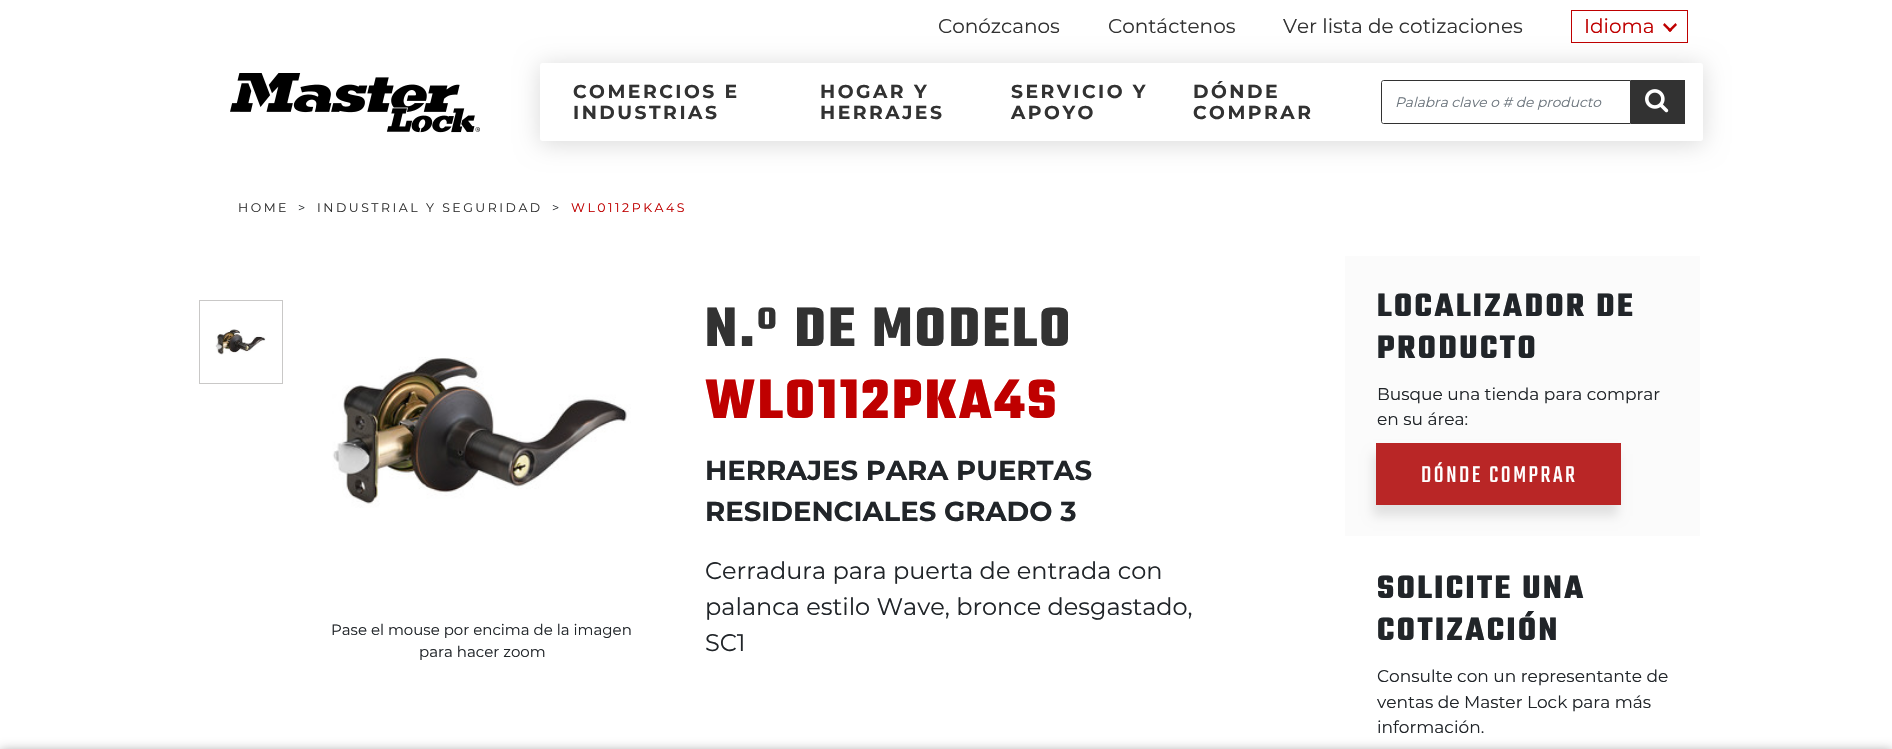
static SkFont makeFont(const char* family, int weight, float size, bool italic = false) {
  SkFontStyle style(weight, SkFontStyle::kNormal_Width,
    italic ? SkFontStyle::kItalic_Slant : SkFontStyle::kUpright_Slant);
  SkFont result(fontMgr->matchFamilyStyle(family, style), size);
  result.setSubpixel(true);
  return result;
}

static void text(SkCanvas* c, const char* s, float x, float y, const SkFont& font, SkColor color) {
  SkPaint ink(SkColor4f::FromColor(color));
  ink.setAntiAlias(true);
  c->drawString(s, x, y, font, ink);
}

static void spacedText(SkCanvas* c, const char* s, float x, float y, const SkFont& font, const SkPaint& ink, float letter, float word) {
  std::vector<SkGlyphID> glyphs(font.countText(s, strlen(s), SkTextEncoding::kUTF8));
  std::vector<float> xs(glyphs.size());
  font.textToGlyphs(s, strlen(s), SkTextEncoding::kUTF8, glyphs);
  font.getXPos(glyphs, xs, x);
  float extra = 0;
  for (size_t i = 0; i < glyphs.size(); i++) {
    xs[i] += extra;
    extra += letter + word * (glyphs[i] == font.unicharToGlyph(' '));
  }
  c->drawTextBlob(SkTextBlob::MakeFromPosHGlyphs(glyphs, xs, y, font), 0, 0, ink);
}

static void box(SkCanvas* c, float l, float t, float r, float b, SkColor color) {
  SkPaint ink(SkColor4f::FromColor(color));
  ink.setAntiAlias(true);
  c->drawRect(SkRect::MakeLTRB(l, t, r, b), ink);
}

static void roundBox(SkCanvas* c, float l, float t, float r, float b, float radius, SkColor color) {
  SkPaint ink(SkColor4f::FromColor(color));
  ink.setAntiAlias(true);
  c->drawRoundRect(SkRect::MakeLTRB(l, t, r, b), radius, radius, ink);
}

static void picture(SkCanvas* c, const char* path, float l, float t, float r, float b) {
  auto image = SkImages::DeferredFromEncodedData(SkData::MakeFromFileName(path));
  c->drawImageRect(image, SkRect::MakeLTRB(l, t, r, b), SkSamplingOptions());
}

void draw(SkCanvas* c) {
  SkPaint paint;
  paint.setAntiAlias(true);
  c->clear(0xffffffff);
  SkFont face1 = makeFont("Montserrat", 400, 20);
  text(c, "Conózcanos", 938, 33, face1, 0xff323232);
  text(c, "Contáctenos", 1108, 33, face1, 0xff323232);
  text(c, "Ver lista de cotizaciones", 1283, 33, face1, 0xff323232);
  paint.setStyle(SkPaint::kStroke_Style);
  paint.setStrokeWidth(1);
  paint.setColor(0xffbf0000);
  c->drawRect(SkRect::MakeLTRB(1571.5f, 10.5f, 1687.5f, 42.5f), paint);
  paint.setStyle(SkPaint::kFill_Style);
  paint.setColor(0x26000000);
  paint.setMaskFilter(SkMaskFilter::MakeBlur(kNormal_SkBlurStyle, 12.5f));
  c->drawRoundRect(SkRect::MakeLTRB(540, 65, 1703, 144), 2.5f, 2.5f, paint);
  paint.setMaskFilter(nullptr);
  text(c, "Idioma", 1584, 33, face1, 0xffbf0000);
  paint.setColor(0xffbf0000);
  c->drawPath(SkPathBuilder().moveTo(1675.5f, 23).lineTo(1677, 25).lineTo(1670, 32).lineTo(1668, 30.5f).close().detach(), paint);
  c->drawPath(SkPathBuilder().moveTo(1664.5f, 23).lineTo(1672, 30.5f).lineTo(1670, 32).lineTo(1663, 25).close().detach(), paint);
  picture(c, "img_01.png", 230, 73, 480, 133);
  roundBox(c, 540, 63, 1703, 141, 2.5f, 0xffffffff);
  SkFont face2 = makeFont("Montserrat", 700, 18.75f);
  paint.setColor(0xff323232);
  spacedText(c, "COMERCIOS E", 573, 98, face2, paint, 2.5f, 0);
  spacedText(c, "INDUSTRIAS", 573, 119, face2, paint, 2.5f, 0);
  spacedText(c, "HOGAR Y", 820, 98, face2, paint, 2.5f, 0);
  spacedText(c, "HERRAJES", 820, 119, face2, paint, 2.5f, 0);
  spacedText(c, "SERVICIO Y", 1011, 98, face2, paint, 2.5f, 0);
  spacedText(c, "APOYO", 1011, 119, face2, paint, 2.5f, 0);
  spacedText(c, "DÓNDE", 1193, 98, face2, paint, 2.5f, 0);
  spacedText(c, "COMPRAR", 1193, 119, face2, paint, 2.5f, 0);
  paint.setStyle(SkPaint::kStroke_Style);
  c->drawPath(SkPathBuilder().moveTo(1383.5f, 80.5f).lineTo(1630.5f, 80.5f).lineTo(1630.5f, 123.5f).lineTo(1383.5f, 123.5f).cubicTo(1382.5f, 123.5f, 1381.5f, 122.5f, 1381.5f, 121.5f).lineTo(1381.5f, 82.5f).cubicTo(1381.5f, 81.5f, 1382.5f, 80.5f, 1383.5f, 80.5f).close().detach(), paint);
  SkFont face3 = makeFont("Montserrat", 400, 13.75f, true);
  text(c, "Palabra clave o # de producto", 1395, 107, face3, 0xff6c757d);
  box(c, 1631, 80, 1685, 124, 0xff323232);
  picture(c, "img_02.png", 1645, 89, 1669, 113);
  SkFont face4 = makeFont("Montserrat", 400, 12.5f);
  paint.setStyle(SkPaint::kFill_Style);
  spacedText(c, "HOME", 238, 212, face4, paint, 2.5f, 0);
  paint.setColor(0xff212529);
  spacedText(c, ">", 298, 212, face4, paint, 2.5f, 0);
  paint.setColor(0xff323232);
  spacedText(c, "INDUSTRIAL Y SEGURIDAD", 317, 212, face4, paint, 2.5f, 0);
  paint.setColor(0xff212529);
  spacedText(c, ">", 552, 212, face4, paint, 2.5f, 0);
  paint.setColor(0xffbf0000);
  spacedText(c, "WL0112PKA4S", 571, 212, face4, paint, 2.5f, 0);
  paint.setStyle(SkPaint::kStroke_Style);
  paint.setColor(0xffc9c8c7);
  c->drawRect(SkRect::MakeLTRB(199.5f, 300.5f, 282.5f, 383.5f), paint);
  picture(c, "img_03.png", 215, 329, 266, 355);
  picture(c, "img_04.png", 332, 357, 631, 508);
  SkFont face5 = makeFont("Montserrat", 400, 15);
  text(c, "Pase el mouse por encima de la imagen", 331, 635, face5, 0xff212529);
  text(c, "para hacer zoom", 419, 657, face5, 0xff212529);
  SkFont face6 = makeFont("Teko", 700, 60);
  paint.setStyle(SkPaint::kFill_Style);
  paint.setColor(0xff323232);
  spacedText(c, "N.º DE MODELO", 705, 346, face6, paint, 2.5f, 0);
  paint.setColor(0xffbf0000);
  spacedText(c, "WL0112PKA4S", 705, 418, face6, paint, 2.5f, 0);
  SkFont face7 = makeFont("Montserrat", 700, 27.5f);
  text(c, "HERRAJES PARA PUERTAS", 705, 480, face7, 0xff212529);
  text(c, "RESIDENCIALES GRADO 3", 705, 521, face7, 0xff212529);
  SkFont face8 = makeFont("Montserrat", 400, 24);
  text(c, "Cerradura para puerta de entrada con", 705, 579, face8, 0xff212529);
  text(c, "palanca estilo Wave, bronce desgastado,", 705, 615, face8, 0xff212529);
  text(c, "SC1", 705, 651, face8, 0xff212529);
  box(c, 1345, 256, 1700, 536, 0xfffbfbfb);
  SkFont face9 = makeFont("Teko", 700, 35);
  paint.setColor(0xff212529);
  spacedText(c, "LOCALIZADOR DE", 1377, 316, face9, paint, 2.5f, 0);
  spacedText(c, "PRODUCTO", 1377, 358, face9, paint, 2.5f, 0);
  SkFont face10 = makeFont("Montserrat", 400, 17);
  text(c, "Busque una tienda para comprar", 1377, 400, face10, 0xff212529);
  text(c, "en su área:", 1377, 425, face10, 0xff212529);
  paint.setColor(0x1a000000);
  paint.setMaskFilter(SkMaskFilter::MakeBlur(kNormal_SkBlurStyle, 5));
  c->drawRect(SkRect::MakeLTRB(1373, 454, 1618, 516), paint);
  paint.setMaskFilter(nullptr);
  box(c, 1376, 443, 1621, 505, 0xffb92626);
  SkFont face11 = makeFont("Teko", 400, 25);
  paint.setColor(0xffffffff);
  spacedText(c, "DÓNDE COMPRAR", 1421, 482, face11, paint, 2.5f, 0);
  paint.setColor(0xff212529);
  spacedText(c, "SOLICITE UNA", 1377, 598, face9, paint, 2.5f, 0);
  spacedText(c, "COTIZACIÓN", 1377, 640, face9, paint, 2.5f, 0);
  text(c, "Consulte con un representante de", 1377, 682, face10, 0xff212529);
  text(c, "ventas de Master Lock para más", 1377, 708, face10, 0xff212529);
  text(c, "información.", 1377, 733, face10, 0xff212529);
  paint.setColor(0x61000000);
  paint.setMaskFilter(SkMaskFilter::MakeBlur(kNormal_SkBlurStyle, 6));
  c->drawRect(SkRect::MakeLTRB(0, 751, 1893, 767), paint);
  paint.setMaskFilter(nullptr);
}
